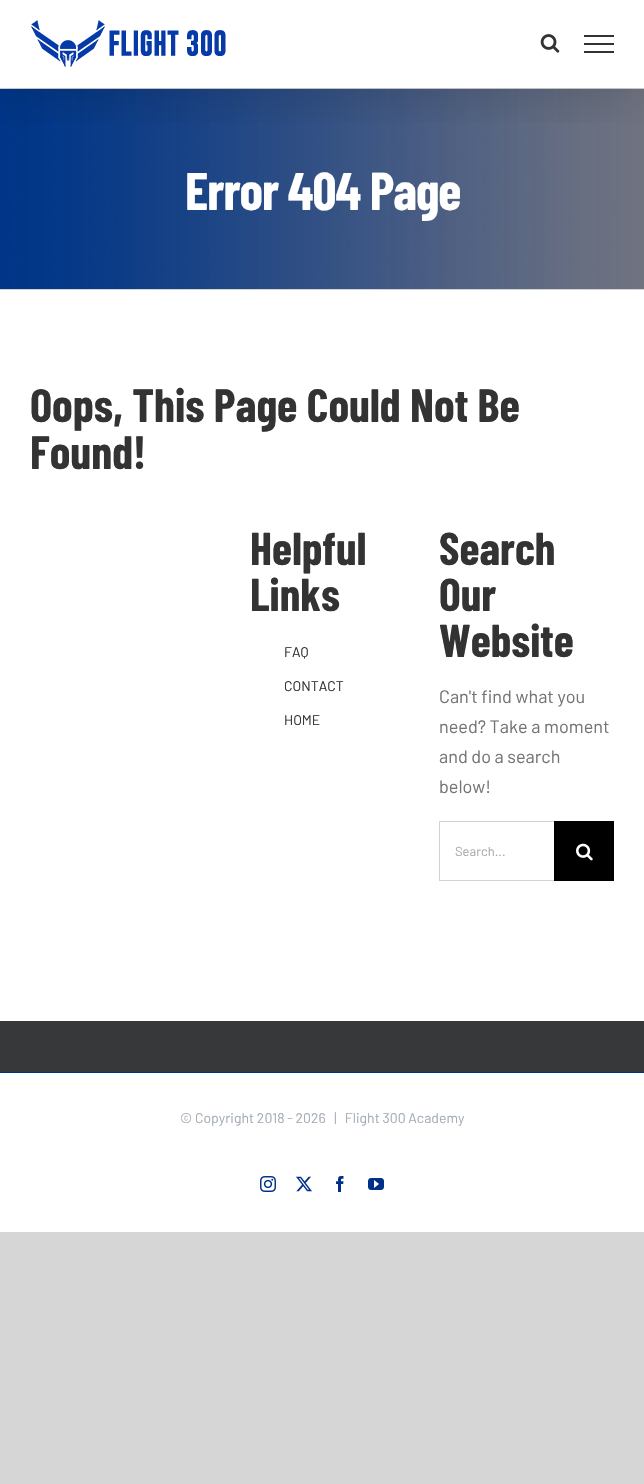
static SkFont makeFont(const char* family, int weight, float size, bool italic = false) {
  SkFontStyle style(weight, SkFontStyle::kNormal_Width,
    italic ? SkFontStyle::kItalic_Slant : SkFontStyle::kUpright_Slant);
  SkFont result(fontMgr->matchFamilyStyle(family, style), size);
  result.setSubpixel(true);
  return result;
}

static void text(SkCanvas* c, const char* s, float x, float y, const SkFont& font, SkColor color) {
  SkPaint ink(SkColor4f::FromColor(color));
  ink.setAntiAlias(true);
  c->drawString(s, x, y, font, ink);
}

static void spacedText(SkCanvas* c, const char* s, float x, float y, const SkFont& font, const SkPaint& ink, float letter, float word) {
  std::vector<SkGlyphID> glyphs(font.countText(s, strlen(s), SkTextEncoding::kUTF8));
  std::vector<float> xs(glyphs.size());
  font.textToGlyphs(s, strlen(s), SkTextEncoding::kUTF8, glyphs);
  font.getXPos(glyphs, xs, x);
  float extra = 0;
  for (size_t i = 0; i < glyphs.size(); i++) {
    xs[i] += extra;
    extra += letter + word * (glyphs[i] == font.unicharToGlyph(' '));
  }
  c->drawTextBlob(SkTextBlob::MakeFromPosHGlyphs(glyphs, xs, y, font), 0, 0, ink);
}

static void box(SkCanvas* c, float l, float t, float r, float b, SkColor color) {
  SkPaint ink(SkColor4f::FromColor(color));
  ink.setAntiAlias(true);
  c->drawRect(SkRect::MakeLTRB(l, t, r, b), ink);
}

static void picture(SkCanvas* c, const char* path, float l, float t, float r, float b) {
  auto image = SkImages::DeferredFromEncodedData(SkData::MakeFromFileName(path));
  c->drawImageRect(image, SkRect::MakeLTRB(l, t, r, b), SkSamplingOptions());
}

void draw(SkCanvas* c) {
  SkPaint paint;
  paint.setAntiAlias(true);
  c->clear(0xffd7d6d6);
  box(c, 0, 0, 644, 1232, 0xffffffff);
  picture(c, "img_03.png", 0, 89, 644, 289);
  box(c, 0, 88, 644, 89, 0xffd2d3d4);
  c->save();
  c->clipRect(SkRect::MakeLTRB(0, 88, 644, 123));
  paint.setColor(0x24000000);
  paint.setMaskFilter(SkMaskFilter::MakeBlur(kNormal_SkBlurStyle, 25));
  c->drawRect(SkRect::MakeLTRB(2, 12, 642, 96), paint);
  paint.setMaskFilter(nullptr);
  c->restore();
  picture(c, "img_01.png", 31, 20, 226, 67);
  picture(c, "img_02.png", 540, 34, 560, 53);
  box(c, 584, 35, 614, 37, 0xff333333);
  box(c, 584, 43, 614, 45, 0xff333333);
  box(c, 584, 51, 614, 53, 0xff333333);
  box(c, 0, 289, 644, 290, 0xffd2d3d4);
  SkFont face1 = makeFont("Barlow Condensed", 700, 53);
  paint.setColor(0xffffffff);
  spacedText(c, "Error 404 Page", 185, 210, face1, paint, -1, 0);
  SkFont face2 = makeFont("Barlow Condensed", 700, 46.75f);
  text(c, "Oops, This Page Could Not Be", 30, 422, face2, 0xff333333);
  text(c, "Found!", 30, 469, face2, 0xff333333);
  SkFont face3 = makeFont("Barlow Condensed", 700, 46);
  text(c, "Helpful", 250, 565, face3, 0xff333333);
  text(c, "Links", 250, 611, face3, 0xff333333);
  SkFont face4 = makeFont("Barlow", 400, 14);
  text(c, "FAQ", 284, 657, face4, 0xff333333);
  text(c, "CONTACT", 284, 691, face4, 0xff333333);
  text(c, "HOME", 284, 725, face4, 0xff333333);
  text(c, "Search", 439, 565, face3, 0xff333333);
  text(c, "Our", 439, 611, face3, 0xff333333);
  text(c, "Website", 439, 657, face3, 0xff333333);
  SkFont face5 = makeFont("Barlow", 400, 18);
  text(c, "Can't find what you", 439, 703, face5, 0xff747474);
  text(c, "need? Take a moment", 439, 733, face5, 0xff747474);
  text(c, "and do a search", 439, 763, face5, 0xff747474);
  text(c, "below!", 439, 793, face5, 0xff747474);
  box(c, 439, 821, 554, 822, 0xffd2d2d2);
  box(c, 439, 880, 554, 881, 0xffd2d2d2);
  box(c, 439, 821, 440, 881, 0xffd2d2d2);
  SkFont face6 = makeFont("Barlow", 400, 13);
  text(c, "Search...", 455, 856, face6, 0xffaaa9a9);
  box(c, 554, 821, 614, 881, 0xff000000);
  picture(c, "img_04.png", 576, 843, 593, 861);
  box(c, 0, 1021, 644, 1072, 0xff363839);
  box(c, 0, 1072, 644, 1073, 0xff003087);
  text(c, "© Copyright 2018 - 2026   |   Flight 300 Academy", 180, 1123, face4, 0xffa3acb6);
  picture(c, "img_05.png", 260, 1176, 276, 1192);
  picture(c, "img_06.png", 296, 1176, 312, 1192);
  picture(c, "img_07.png", 336, 1176, 344, 1192);
  picture(c, "img_08.png", 368, 1178, 384, 1190);
}
